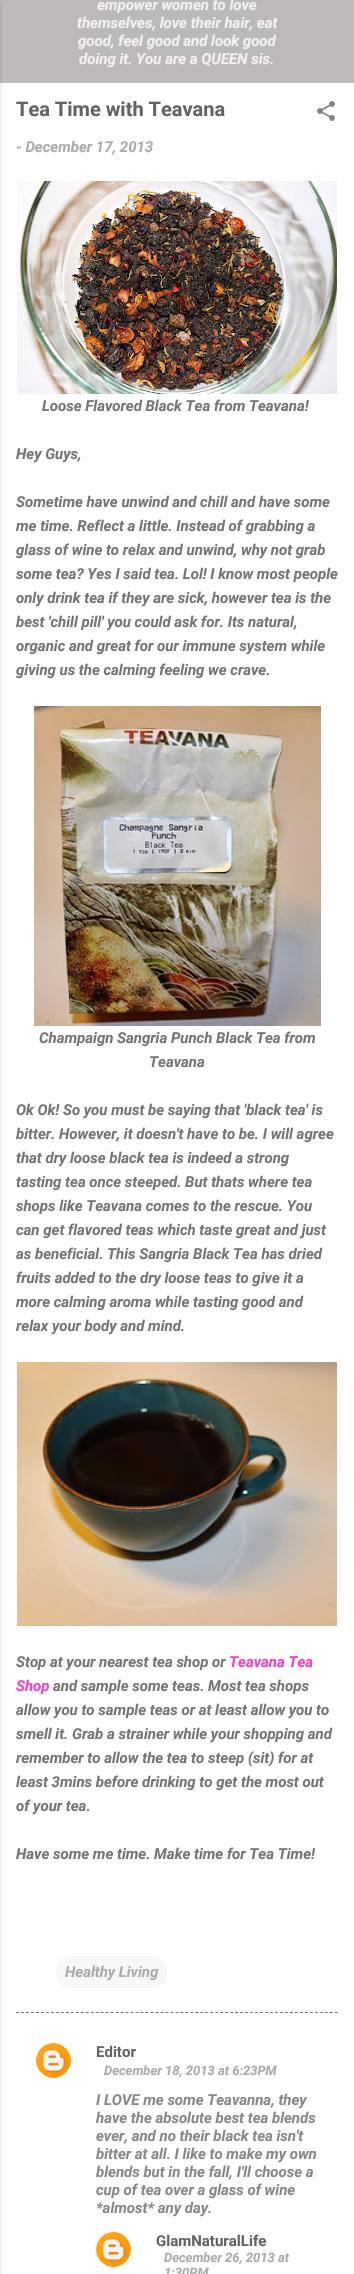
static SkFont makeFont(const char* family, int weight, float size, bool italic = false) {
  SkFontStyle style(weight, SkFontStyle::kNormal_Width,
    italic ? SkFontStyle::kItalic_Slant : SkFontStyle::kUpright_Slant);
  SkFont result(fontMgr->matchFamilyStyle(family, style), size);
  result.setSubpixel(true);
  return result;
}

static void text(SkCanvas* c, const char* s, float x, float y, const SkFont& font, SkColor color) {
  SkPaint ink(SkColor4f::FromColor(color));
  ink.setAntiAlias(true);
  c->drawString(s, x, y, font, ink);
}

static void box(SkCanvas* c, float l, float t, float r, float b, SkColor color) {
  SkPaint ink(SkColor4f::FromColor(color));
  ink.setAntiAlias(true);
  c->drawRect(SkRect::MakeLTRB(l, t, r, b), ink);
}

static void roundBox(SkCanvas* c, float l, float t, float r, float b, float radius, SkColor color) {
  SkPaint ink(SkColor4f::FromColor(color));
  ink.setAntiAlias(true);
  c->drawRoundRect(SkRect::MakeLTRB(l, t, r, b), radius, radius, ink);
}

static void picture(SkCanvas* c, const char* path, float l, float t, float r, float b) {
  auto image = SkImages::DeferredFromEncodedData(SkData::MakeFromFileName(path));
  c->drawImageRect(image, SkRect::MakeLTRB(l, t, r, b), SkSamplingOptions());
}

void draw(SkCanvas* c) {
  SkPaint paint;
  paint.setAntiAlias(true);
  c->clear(0xffbcb8bb);
  box(c, 0, 83, 354, 2274, 0xffffffff);
  paint.setColor(0x1a000000);
  paint.setMaskFilter(SkMaskFilter::MakeBlur(kNormal_SkBlurStyle, 1.5f));
  c->drawRect(SkRect::MakeLTRB(-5, 1, 1, 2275), paint);
  paint.setMaskFilter(nullptr);
  SkFont face1 = makeFont("Roboto", 700, 15, true);
  text(c, "empower women to love", 97, 10, face1, 0xfff2f1f1);
  text(c, "themselves, love their hair, eat", 77, 28, face1, 0xfff2f1f1);
  text(c, "good, feel good and look good", 78, 46, face1, 0xfff2f1f1);
  text(c, "doing it. You are a QUEEN sis.", 79, 64, face1, 0xfff2f1f1);
  SkFont face2 = makeFont("Roboto", 700, 20);
  text(c, "Tea Time with Teavana", 16, 116, face2, 0xff636363);
  picture(c, "img_01.png", 317, 101, 335, 121);
  text(c, "- December 17, 2013", 16, 152, face1, 0xffababab);
  picture(c, "img_02.png", 17, 181, 337, 394);
  text(c, "Loose Flavored Black Tea from Teavana!", 42, 411, face1, 0xff757575);
  text(c, "Hey Guys,", 16, 459, face1, 0xff757575);
  text(c, "Sometime have unwind and chill and have some", 16, 507, face1, 0xff757575);
  text(c, "me time. Reflect a little. Instead of grabbing a", 16, 531, face1, 0xff757575);
  text(c, "glass of wine to relax and unwind, why not grab", 16, 555, face1, 0xff757575);
  text(c, "some tea? Yes I said tea. Lol! I know most people", 16, 579, face1, 0xff757575);
  text(c, "only drink tea if they are sick, however tea is the", 16, 603, face1, 0xff757575);
  text(c, "best 'chill pill' you could ask for. Its natural,", 16, 627, face1, 0xff757575);
  text(c, "organic and great for our immune system while", 16, 651, face1, 0xff757575);
  text(c, "giving us the calming feeling we crave.", 16, 675, face1, 0xff757575);
  picture(c, "img_03.png", 34, 706, 321, 1026);
  text(c, "Champaign Sangria Punch Black Tea from", 39, 1043, face1, 0xff757575);
  text(c, "Teavana", 149, 1067, face1, 0xff757575);
  text(c, "Ok Ok! So you must be saying that 'black tea' is", 16, 1115, face1, 0xff757575);
  text(c, "bitter. However, it doesn't have to be. I will agree", 16, 1139, face1, 0xff757575);
  text(c, "that dry loose black tea is indeed a strong", 16, 1163, face1, 0xff757575);
  text(c, "tasting tea once steeped. But thats where tea", 16, 1187, face1, 0xff757575);
  text(c, "shops like Teavana comes to the rescue. You", 16, 1211, face1, 0xff757575);
  text(c, "can get flavored teas which taste great and just", 16, 1235, face1, 0xff757575);
  text(c, "as beneficial. This Sangria Black Tea has dried", 16, 1259, face1, 0xff757575);
  text(c, "fruits added to the dry loose teas to give it a", 16, 1283, face1, 0xff757575);
  text(c, "more calming aroma while tasting good and", 16, 1307, face1, 0xff757575);
  text(c, "relax your body and mind.", 16, 1331, face1, 0xff757575);
  picture(c, "img_04.png", 17, 1362, 337, 1626);
  text(c, "Stop at your nearest tea shop or", 16, 1667, face1, 0xff757575);
  text(c, "Teavana Tea", 229, 1667, face1, 0xfff53dd0);
  text(c, "Shop", 16, 1691, face1, 0xfff53dd0);
  text(c, "and sample some teas. Most tea shops", 53, 1691, face1, 0xff757575);
  text(c, "allow you to sample teas or at least allow you to", 16, 1715, face1, 0xff757575);
  text(c, "smell it. Grab a strainer while your shopping and", 16, 1739, face1, 0xff757575);
  text(c, "remember to allow the tea to steep (sit) for at", 16, 1763, face1, 0xff757575);
  text(c, "least 3mins before drinking to get the most out", 16, 1787, face1, 0xff757575);
  text(c, "of your tea.", 16, 1811, face1, 0xff757575);
  text(c, "Have some me time. Make time for Tea Time!", 16, 1859, face1, 0xff757575);
  roundBox(c, 56, 1956, 167, 1988, 15, 0xfff7f7f7);
  text(c, "Healthy Living", 65, 1977, face1, 0xffababab);
  paint.setStyle(SkPaint::kStroke_Style);
  paint.setStrokeWidth(1);
  paint.setColor(0xff757575);
  paint.setPathEffect(SkDashPathEffect::Make({{3, 1.98f}}, 0));
  c->drawPath(SkPathBuilder().moveTo(16, 2012.5f).lineTo(338, 2012.5f).detach(), paint);
  paint.setPathEffect(nullptr);
  picture(c, "img_05.png", 36, 2043, 71, 2078);
  SkFont face3 = makeFont("Roboto", 700, 15);
  text(c, "Editor", 96, 2057, face3, 0xff636363);
  SkFont face4 = makeFont("Roboto", 700, 13, true);
  text(c, "December 18, 2013 at 6:23 PM", 104, 2075, face4, 0xffababab);
  text(c, "I LOVE me some Teavanna, they", 96, 2105, face1, 0xff888888);
  text(c, "have the absolute best tea blends", 96, 2123, face1, 0xff888888);
  text(c, "ever, and no their black tea isn't", 96, 2141, face1, 0xff888888);
  text(c, "bitter at all. I like to make my own", 96, 2159, face1, 0xff888888);
  text(c, "blends but in the fall, I'll choose a", 96, 2177, face1, 0xff888888);
  text(c, "cup of tea over a glass of wine", 96, 2195, face1, 0xff888888);
  text(c, "*almost* any day.", 96, 2213, face1, 0xff888888);
  picture(c, "img_05.png", 96, 2232, 131, 2267);
  text(c, "GlamNaturalLife", 156, 2246, face3, 0xff636363);
  text(c, "December 26, 2013 at", 164, 2262, face4, 0xffababab);
  text(c, "1:30 PM", 164, 2277, face4, 0xffababab);
}
